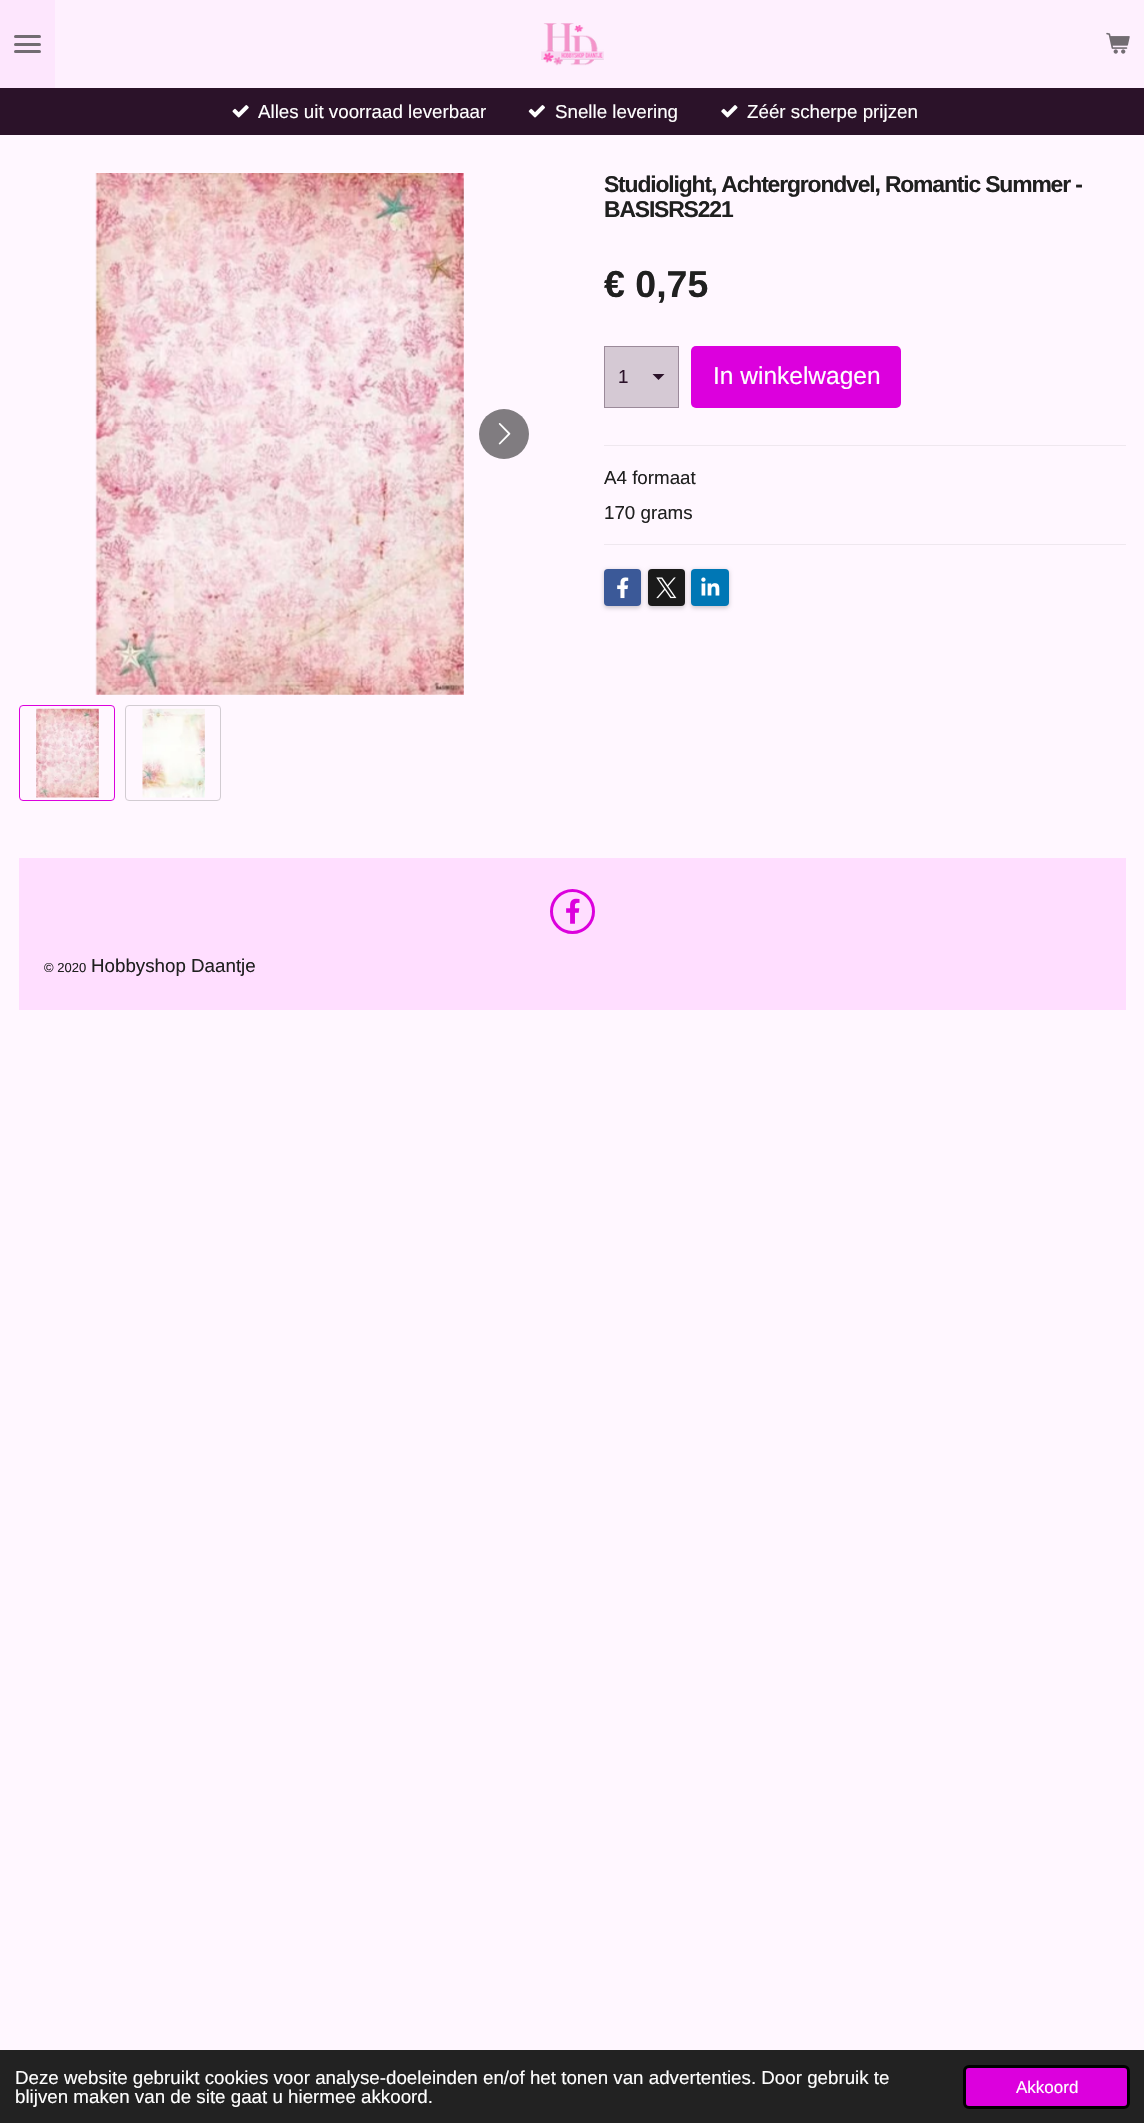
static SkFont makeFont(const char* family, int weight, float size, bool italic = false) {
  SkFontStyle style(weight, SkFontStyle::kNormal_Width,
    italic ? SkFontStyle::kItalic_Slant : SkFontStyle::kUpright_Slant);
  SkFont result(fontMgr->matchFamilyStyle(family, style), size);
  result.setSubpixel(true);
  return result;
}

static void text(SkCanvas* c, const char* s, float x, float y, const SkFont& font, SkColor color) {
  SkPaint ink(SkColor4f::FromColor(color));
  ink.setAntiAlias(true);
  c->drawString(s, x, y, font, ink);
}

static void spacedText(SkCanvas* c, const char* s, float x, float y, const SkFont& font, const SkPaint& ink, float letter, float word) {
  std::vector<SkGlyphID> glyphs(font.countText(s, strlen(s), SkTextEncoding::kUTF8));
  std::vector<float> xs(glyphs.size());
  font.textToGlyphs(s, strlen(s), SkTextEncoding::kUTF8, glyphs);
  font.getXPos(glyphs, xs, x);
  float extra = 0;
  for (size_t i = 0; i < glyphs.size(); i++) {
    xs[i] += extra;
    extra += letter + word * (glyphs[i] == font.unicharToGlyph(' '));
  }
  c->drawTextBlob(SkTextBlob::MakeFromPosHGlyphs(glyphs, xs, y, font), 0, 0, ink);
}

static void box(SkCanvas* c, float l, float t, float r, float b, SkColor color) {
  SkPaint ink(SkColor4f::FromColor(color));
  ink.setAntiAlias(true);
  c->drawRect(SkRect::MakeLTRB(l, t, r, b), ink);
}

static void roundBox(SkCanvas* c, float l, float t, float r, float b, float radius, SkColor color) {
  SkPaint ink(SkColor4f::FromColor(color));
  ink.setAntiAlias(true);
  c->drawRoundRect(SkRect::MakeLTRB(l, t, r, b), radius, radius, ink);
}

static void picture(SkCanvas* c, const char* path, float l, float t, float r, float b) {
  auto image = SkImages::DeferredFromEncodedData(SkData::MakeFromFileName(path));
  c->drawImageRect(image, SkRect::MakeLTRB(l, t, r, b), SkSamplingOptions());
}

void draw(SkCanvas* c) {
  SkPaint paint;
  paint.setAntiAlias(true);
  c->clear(0xfffff7ff);
  box(c, 0, 0, 55, 88, 0xfffde6fd);
  roundBox(c, 14, 43, 41, 46, 1.5f, 0xff726c72);
  roundBox(c, 14, 35, 41, 38, 1.5f, 0xff726c72);
  roundBox(c, 14, 50, 41, 53, 1.5f, 0xff726c72);
  box(c, 55, 0, 1144, 88, 0xfffef0fe);
  picture(c, "img_01.png", 1106, 32, 1130, 54);
  picture(c, "img_02.png", 541, 23, 604, 66);
  box(c, 0, 88, 1144, 135, 0xff2b1229);
  picture(c, "img_03.png", 232, 105, 249, 118);
  SkFont face1 = makeFont("Liberation Sans", 400, 18.75f);
  text(c, "Alles uit voorraad leverbaar", 258, 118, face1, 0xffffffff);
  picture(c, "img_04.png", 528, 105, 545, 118);
  text(c, "Snelle levering", 555, 118, face1, 0xffffffff);
  picture(c, "img_05.png", 721, 105, 738, 118);
  text(c, "Zéér scherpe prijzen", 747, 118, face1, 0xffffffff);
  picture(c, "img_06.png", 95, 173, 464, 695);
  paint.setColor(0xff807c80);
  c->drawCircle(504, 434, 25, paint);
  picture(c, "img_07.png", 498, 423, 511, 445);
  paint.setStyle(SkPaint::kStroke_Style);
  paint.setStrokeWidth(1);
  paint.setColor(0xffdc00dd);
  c->drawRoundRect(SkRect::MakeLTRB(19.5f, 705.5f, 114.5f, 800.5f), 3.5f, 3.5f, paint);
  picture(c, "img_08.png", 36, 708, 99, 798);
  paint.setColor(0xffd2ccd2);
  c->drawRoundRect(SkRect::MakeLTRB(125.5f, 705.5f, 220.5f, 800.5f), 3.5f, 3.5f, paint);
  picture(c, "img_09.png", 142, 708, 205, 798);
  SkFont face2 = makeFont("Liberation Sans", 700, 22.9f);
  paint.setStyle(SkPaint::kFill_Style);
  paint.setColor(0xff202020);
  spacedText(c, "Studiolight, Achtergrondvel, Romantic Summer -", 604, 192, face2, paint, -1.15f, 0);
  spacedText(c, "BASISRS221", 604, 217, face2, paint, -1.15f, 0);
  SkFont face3 = makeFont("Liberation Sans", 700, 37.5f);
  text(c, "€ 0,75", 604, 297, face3, 0xff202020);
  box(c, 605, 347, 678, 407, 0xffd5c9d4);
  paint.setColor(0xff2b1229);
  c->drawPath(SkPathBuilder().moveTo(658.5f, 380).lineTo(652.5f, 374).lineTo(664.5f, 374).close().detach(), paint);
  paint.setStyle(SkPaint::kStroke_Style);
  paint.setColor(0xff9b8a9a);
  c->drawRect(SkRect::MakeLTRB(604.5f, 346.5f, 678.5f, 407.5f), paint);
  text(c, "1", 618, 383, face1, 0xff2b1229);
  roundBox(c, 691, 346, 901, 408, 5, 0xffdc00dd);
  SkFont face4 = makeFont("Liberation Sans", 400, 24.5f);
  text(c, "In winkelwagen", 713, 384, face4, 0xffffffff);
  box(c, 604, 445, 1126, 446, 0xffefe8ef);
  text(c, "A4 formaat", 604, 484, face1, 0xff202020);
  text(c, "170 grams", 604, 519, face1, 0xff202020);
  box(c, 604, 544, 1126, 545, 0xffefe8ef);
  paint.setStyle(SkPaint::kFill_Style);
  paint.setColor(0x33000000);
  paint.setMaskFilter(SkMaskFilter::MakeBlur(kNormal_SkBlurStyle, 2));
  c->drawRoundRect(SkRect::MakeLTRB(604, 570, 641, 608), 4, 4, paint);
  paint.setMaskFilter(nullptr);
  roundBox(c, 604, 569, 641, 606, 4, 0xff3b5998);
  picture(c, "img_10.png", 617, 577, 629, 599);
  paint.setMaskFilter(SkMaskFilter::MakeBlur(kNormal_SkBlurStyle, 2));
  c->drawRoundRect(SkRect::MakeLTRB(648, 570, 685, 608), 4, 4, paint);
  paint.setMaskFilter(nullptr);
  roundBox(c, 648, 569, 685, 606, 4, 0xff1a1a1a);
  picture(c, "img_11.png", 656, 577, 677, 599);
  paint.setMaskFilter(SkMaskFilter::MakeBlur(kNormal_SkBlurStyle, 2));
  c->drawRoundRect(SkRect::MakeLTRB(691, 570, 729, 608), 4, 4, paint);
  paint.setMaskFilter(nullptr);
  roundBox(c, 691, 569, 729, 606, 4, 0xff0077b5);
  picture(c, "img_12.png", 701, 577, 720, 596);
  box(c, 19, 858, 1126, 1010, 0xffffdeff);
  paint.setStyle(SkPaint::kStroke_Style);
  paint.setStrokeWidth(3);
  paint.setColor(0xffdc00dd);
  c->drawCircle(572.5f, 911.5f, 21, paint);
  picture(c, "img_13.png", 566, 898, 580, 924);
  SkFont face5 = makeFont("Liberation Sans", 400, 13);
  text(c, "© 2020", 44, 972, face5, 0xff202020);
  text(c, "Hobbyshop Daantje", 91, 972, face1, 0xff202020);
  box(c, 0, 2050, 1144, 2123, 0xff222222);
  text(c, "Deze website gebruikt cookies voor analyse-doeleinden en/of het tonen van advertenties. Door gebruik te", 15, 2084, face1, 0xffffffff);
  text(c, "blijven maken van de site gaat u hiermee akkoord.", 15, 2103, face1, 0xffffffff);
  paint.setStyle(SkPaint::kFill_Style);
  c->drawRoundRect(SkRect::MakeLTRB(964.5f, 2066.5f, 1128.5f, 2107.5f), 4.5f, 4.5f, paint);
  paint.setStyle(SkPaint::kStroke_Style);
  paint.setColor(0xff000000);
  c->drawRoundRect(SkRect::MakeLTRB(964.5f, 2066.5f, 1128.5f, 2107.5f), 4.5f, 4.5f, paint);
  SkFont face6 = makeFont("Liberation Sans", 400, 17);
  text(c, "Akkoord", 1016, 2093, face6, 0xffffffff);
}
